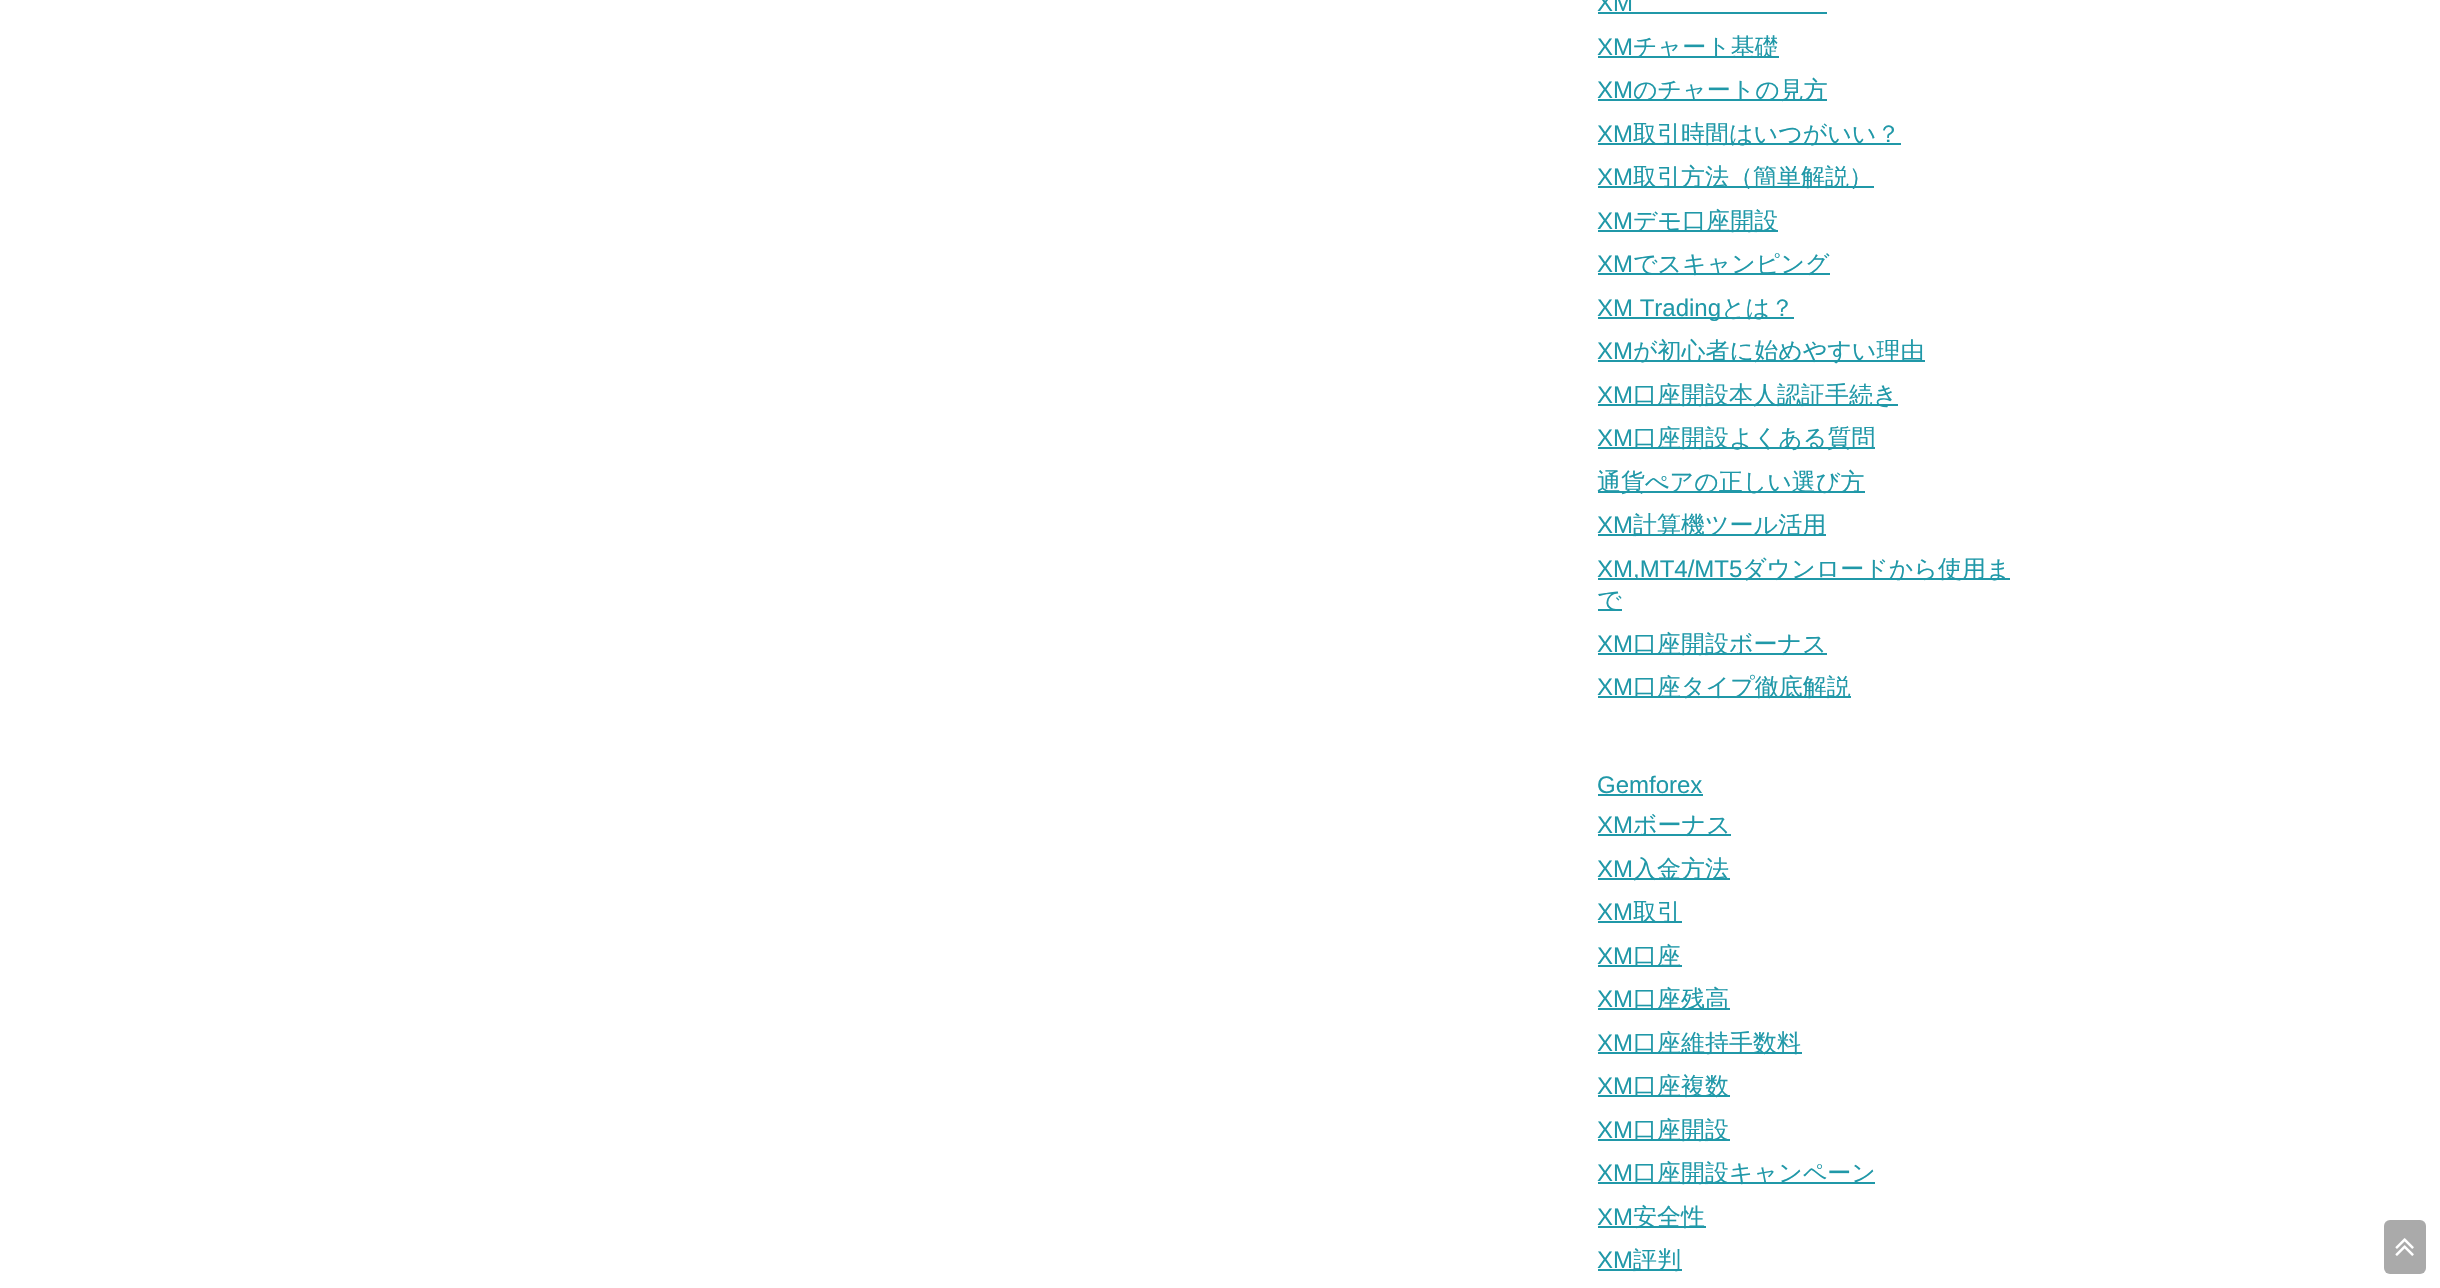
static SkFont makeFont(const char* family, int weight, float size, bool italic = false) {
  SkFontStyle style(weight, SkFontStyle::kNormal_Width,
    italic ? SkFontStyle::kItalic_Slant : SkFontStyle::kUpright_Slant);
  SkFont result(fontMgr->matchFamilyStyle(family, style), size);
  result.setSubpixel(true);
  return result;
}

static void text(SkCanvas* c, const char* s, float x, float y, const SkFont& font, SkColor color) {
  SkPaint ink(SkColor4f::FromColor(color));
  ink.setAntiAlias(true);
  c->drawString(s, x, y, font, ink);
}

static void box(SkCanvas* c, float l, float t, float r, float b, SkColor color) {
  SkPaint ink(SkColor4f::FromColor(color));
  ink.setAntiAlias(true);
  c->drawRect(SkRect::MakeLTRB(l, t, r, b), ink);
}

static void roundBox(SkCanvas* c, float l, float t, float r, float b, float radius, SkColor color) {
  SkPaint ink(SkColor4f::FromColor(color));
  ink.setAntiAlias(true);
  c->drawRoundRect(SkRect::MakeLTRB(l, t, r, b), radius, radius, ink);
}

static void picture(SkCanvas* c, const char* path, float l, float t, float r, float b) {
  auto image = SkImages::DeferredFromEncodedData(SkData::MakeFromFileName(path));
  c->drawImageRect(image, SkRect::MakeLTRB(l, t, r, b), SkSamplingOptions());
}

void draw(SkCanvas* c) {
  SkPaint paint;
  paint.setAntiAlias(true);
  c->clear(0xffffffff);
  SkFont face1 = makeFont("Liberation Sans", 400, 24);
  text(c, "XM", 1597, 11, face1, 0xff2098a8);
  box(c, 1598, 12, 1827, 14, 0xff2098a8);
  text(c, "XM", 1597, 55, face1, 0xff2098a8);
  box(c, 1598, 56, 1779, 58, 0xff2098a8);
  SkFont face2 = makeFont("WenQuanYi Zen Hei", 500, 24);
  text(c, "チャート基礎", 1633, 55, face2, 0xff2098a8);
  text(c, "XM", 1597, 98, face1, 0xff2098a8);
  box(c, 1598, 99, 1827, 101, 0xff2098a8);
  text(c, "のチャートの見方", 1633, 98, face2, 0xff2098a8);
  text(c, "XM", 1597, 142, face1, 0xff2098a8);
  box(c, 1598, 143, 1901, 145, 0xff2098a8);
  text(c, "取引時間はいつがいい？", 1633, 142, face2, 0xff2098a8);
  text(c, "XM", 1597, 185, face1, 0xff2098a8);
  box(c, 1598, 186, 1874, 188, 0xff2098a8);
  text(c, "取引方法（簡単解説）", 1633, 185, face2, 0xff2098a8);
  text(c, "XM", 1597, 229, face1, 0xff2098a8);
  box(c, 1598, 230, 1778, 232, 0xff2098a8);
  text(c, "デモ口座開設", 1633, 229, face2, 0xff2098a8);
  text(c, "XM", 1597, 272, face1, 0xff2098a8);
  box(c, 1598, 273, 1830, 275, 0xff2098a8);
  text(c, "でスキャンピング", 1633, 272, face2, 0xff2098a8);
  box(c, 1598, 317, 1794, 319, 0xff2098a8);
  text(c, "XM Trading", 1597, 316, face1, 0xff2098a8);
  text(c, "とは？", 1721, 316, face2, 0xff2098a8);
  text(c, "XM", 1597, 359, face1, 0xff2098a8);
  box(c, 1598, 360, 1925, 362, 0xff2098a8);
  text(c, "が初心者に始めやすい理由", 1633, 359, face2, 0xff2098a8);
  text(c, "XM", 1597, 403, face1, 0xff2098a8);
  box(c, 1598, 404, 1898, 406, 0xff2098a8);
  text(c, "口座開設本人認証手続き", 1633, 403, face2, 0xff2098a8);
  text(c, "XM", 1597, 446, face1, 0xff2098a8);
  box(c, 1598, 447, 1875, 449, 0xff2098a8);
  text(c, "口座開設よくある質問", 1633, 446, face2, 0xff2098a8);
  box(c, 1598, 491, 1865, 493, 0xff2098a8);
  text(c, "通貨ぺアの正しい選び方", 1597, 490, face2, 0xff2098a8);
  text(c, "XM", 1597, 533, face1, 0xff2098a8);
  box(c, 1598, 534, 1826, 536, 0xff2098a8);
  text(c, "計算機ツール活用", 1633, 533, face2, 0xff2098a8);
  box(c, 1598, 578, 2010, 580, 0xff2098a8);
  text(c, "XM,MT4/MT5", 1597, 577, face1, 0xff2098a8);
  text(c, "ダウンロードから使用ま", 1742, 577, face2, 0xff2098a8);
  box(c, 1598, 609, 1622, 611, 0xff2098a8);
  text(c, "で", 1597, 608, face2, 0xff2098a8);
  text(c, "XM", 1597, 652, face1, 0xff2098a8);
  box(c, 1598, 653, 1827, 655, 0xff2098a8);
  text(c, "口座開設ボーナス", 1633, 652, face2, 0xff2098a8);
  text(c, "XM", 1597, 695, face1, 0xff2098a8);
  box(c, 1598, 696, 1851, 698, 0xff2098a8);
  text(c, "口座タイプ徹底解説", 1633, 695, face2, 0xff2098a8);
  text(c, "Gemforex", 1597, 793, face1, 0xff2098a8);
  box(c, 1598, 794, 1703, 796, 0xff2098a8);
  text(c, "XM", 1597, 833, face1, 0xff2098a8);
  box(c, 1598, 834, 1731, 836, 0xff2098a8);
  text(c, "ボーナス", 1633, 833, face2, 0xff2098a8);
  text(c, "XM", 1597, 877, face1, 0xff2098a8);
  box(c, 1598, 878, 1730, 880, 0xff2098a8);
  text(c, "入金方法", 1633, 877, face2, 0xff2098a8);
  text(c, "XM", 1597, 920, face1, 0xff2098a8);
  box(c, 1598, 921, 1682, 923, 0xff2098a8);
  text(c, "取引", 1633, 920, face2, 0xff2098a8);
  text(c, "XM", 1597, 964, face1, 0xff2098a8);
  box(c, 1598, 965, 1682, 967, 0xff2098a8);
  text(c, "口座", 1633, 964, face2, 0xff2098a8);
  text(c, "XM", 1597, 1007, face1, 0xff2098a8);
  box(c, 1598, 1008, 1730, 1010, 0xff2098a8);
  text(c, "口座残高", 1633, 1007, face2, 0xff2098a8);
  text(c, "XM", 1597, 1051, face1, 0xff2098a8);
  box(c, 1598, 1052, 1802, 1054, 0xff2098a8);
  text(c, "口座維持手数料", 1633, 1051, face2, 0xff2098a8);
  text(c, "XM", 1597, 1094, face1, 0xff2098a8);
  box(c, 1598, 1095, 1730, 1097, 0xff2098a8);
  text(c, "口座複数", 1633, 1094, face2, 0xff2098a8);
  text(c, "XM", 1597, 1138, face1, 0xff2098a8);
  box(c, 1598, 1139, 1730, 1141, 0xff2098a8);
  text(c, "口座開設", 1633, 1138, face2, 0xff2098a8);
  text(c, "XM", 1597, 1181, face1, 0xff2098a8);
  box(c, 1598, 1182, 1875, 1184, 0xff2098a8);
  text(c, "口座開設キャンペーン", 1633, 1181, face2, 0xff2098a8);
  text(c, "XM", 1597, 1225, face1, 0xff2098a8);
  box(c, 1598, 1226, 1706, 1228, 0xff2098a8);
  text(c, "安全性", 1633, 1225, face2, 0xff2098a8);
  text(c, "XM", 1597, 1268, face1, 0xff2098a8);
  box(c, 1598, 1269, 1682, 1271, 0xff2098a8);
  text(c, "評判", 1633, 1268, face2, 0xff2098a8);
  roundBox(c, 2384, 1220, 2426, 1274, 6, 0xffaaaaaa);
  picture(c, "img_01.png", 2395, 1238, 2414, 1256);
}
